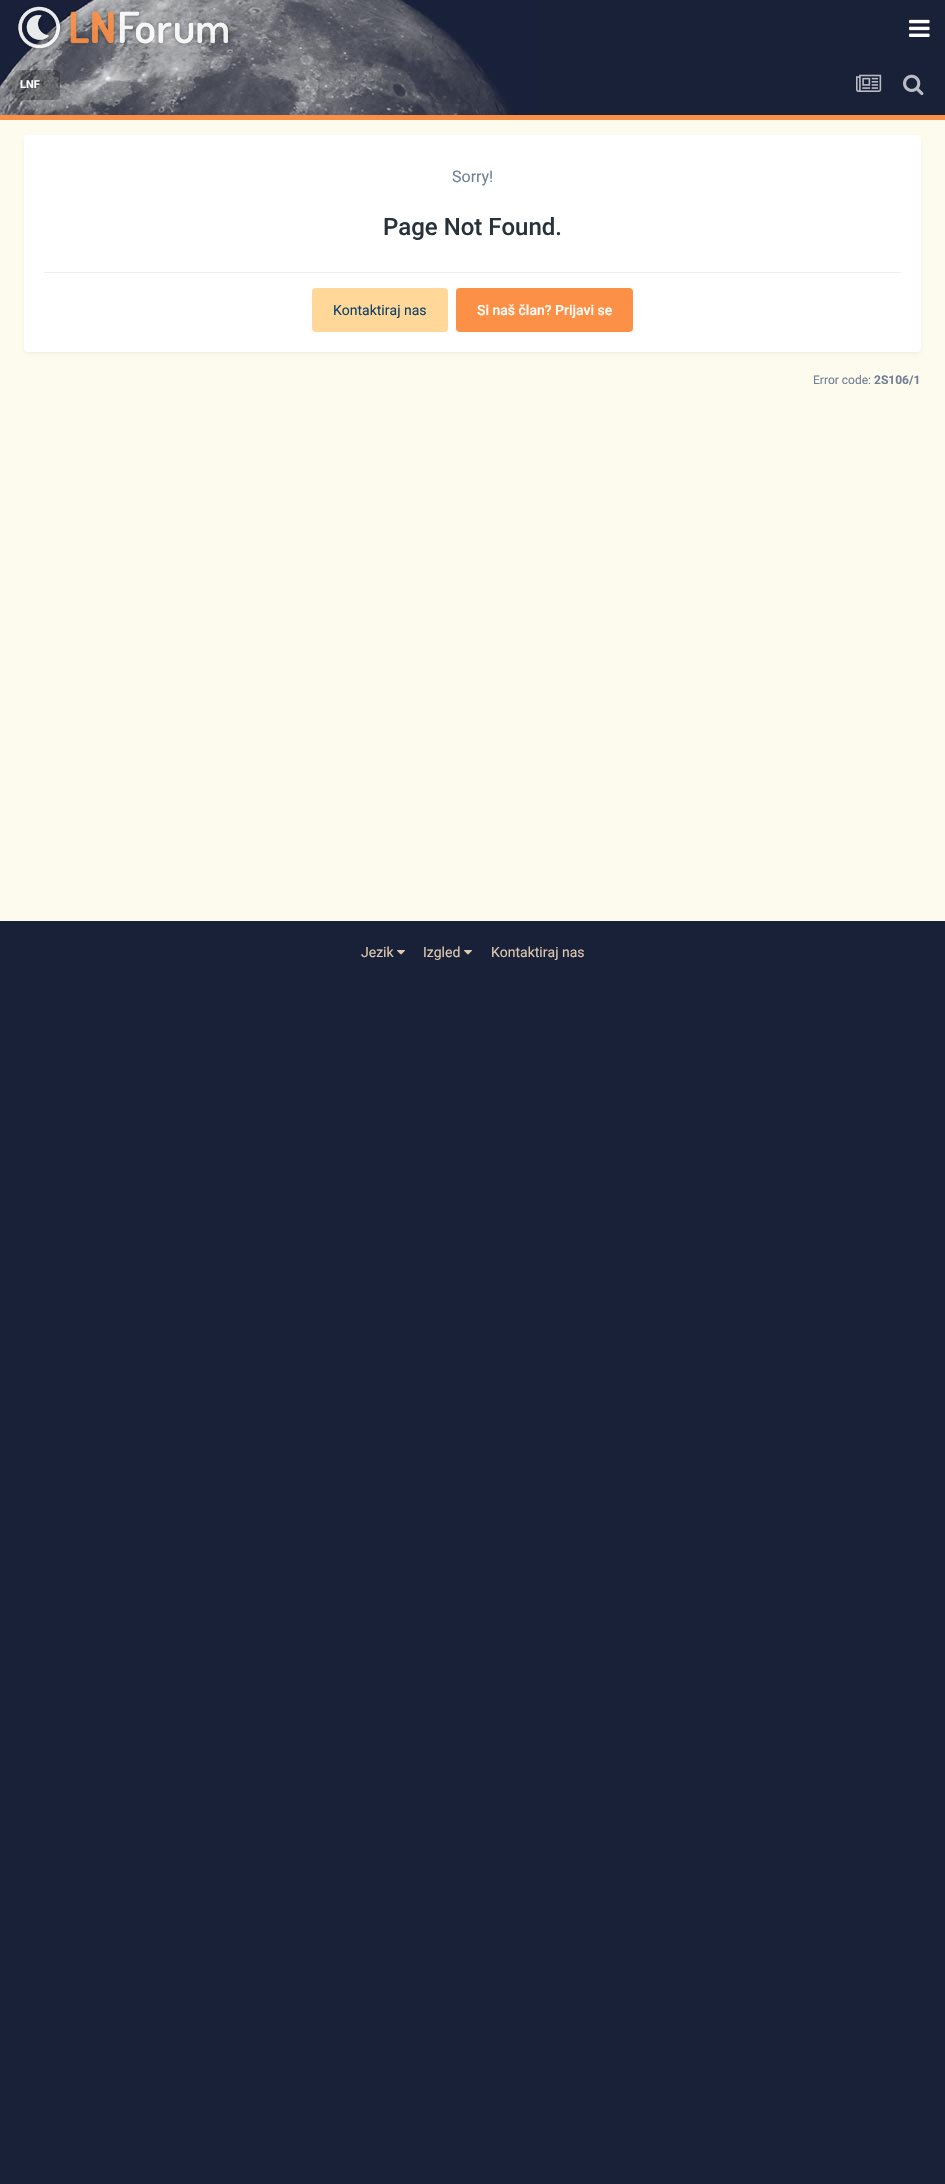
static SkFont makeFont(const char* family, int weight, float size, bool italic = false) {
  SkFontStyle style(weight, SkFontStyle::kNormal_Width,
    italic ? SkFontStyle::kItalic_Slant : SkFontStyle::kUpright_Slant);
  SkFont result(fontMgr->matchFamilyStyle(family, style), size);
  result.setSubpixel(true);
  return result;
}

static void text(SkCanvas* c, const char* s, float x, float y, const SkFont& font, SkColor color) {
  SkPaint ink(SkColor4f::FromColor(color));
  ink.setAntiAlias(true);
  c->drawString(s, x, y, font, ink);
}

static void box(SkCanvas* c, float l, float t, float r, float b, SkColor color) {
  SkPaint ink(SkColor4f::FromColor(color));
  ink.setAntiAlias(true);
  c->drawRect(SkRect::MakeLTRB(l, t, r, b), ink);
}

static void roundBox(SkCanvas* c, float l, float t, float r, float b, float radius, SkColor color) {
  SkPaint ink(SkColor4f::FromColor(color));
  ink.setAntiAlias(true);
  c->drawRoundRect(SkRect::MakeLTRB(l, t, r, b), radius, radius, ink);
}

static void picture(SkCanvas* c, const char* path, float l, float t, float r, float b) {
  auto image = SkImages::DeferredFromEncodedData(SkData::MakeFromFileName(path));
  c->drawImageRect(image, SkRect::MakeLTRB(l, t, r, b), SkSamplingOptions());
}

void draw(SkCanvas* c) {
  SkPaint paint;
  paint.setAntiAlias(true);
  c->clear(0xff192139);
  picture(c, "img_01.png", 0, 0, 539, 115);
  box(c, 0, 115, 945, 120, 0xfffc9046);
  picture(c, "img_02.png", 17, 5, 231, 51);
  picture(c, "img_03.png", 909, 19, 930, 37);
  paint.setColor(0x40000000);
  c->drawPath(SkPathBuilder().moveTo(20, 70).lineTo(55, 70).cubicTo(58, 70, 60, 72, 60, 75).lineTo(60, 95).cubicTo(60, 98, 58, 100, 55, 100).lineTo(20, 100).close().detach(), paint);
  c->drawPath(SkPathBuilder().moveTo(20, 85).lineTo(20, 100).cubicTo(15.5f, 100, 13.5f, 95.5f, 11, 92).cubicTo(9.5f, 90, 7, 88, 7, 85).close().moveTo(20, 85).lineTo(7, 85).cubicTo(7, 82, 9.5f, 80, 11, 78).cubicTo(13.5f, 74.5f, 15.5f, 70, 20, 70).close().detach(), paint);
  SkFont face1 = makeFont("Roboto", 700, 11);
  text(c, "LNF", 20, 88, face1, 0xffffffff);
  picture(c, "img_04.png", 856, 74, 882, 92);
  picture(c, "img_05.png", 903, 74, 924, 96);
  box(c, 0, 120, 945, 921, 0xfffdfbed);
  paint.setColor(0x1a3d6594);
  paint.setMaskFilter(SkMaskFilter::MakeBlur(kNormal_SkBlurStyle, 2));
  c->drawRoundRect(SkRect::MakeLTRB(25, 138, 920, 353), 3, 3, paint);
  paint.setMaskFilter(nullptr);
  roundBox(c, 24, 135, 921, 352, 4, 0xffffffff);
  SkFont face2 = makeFont("Roboto", 400, 16);
  text(c, "Sorry!", 452, 182, face2, 0xff718096);
  SkFont face3 = makeFont("Roboto", 500, 24);
  text(c, "Page Not Found.", 383, 235, face3, 0xff28323a);
  box(c, 44, 272, 901, 273, 0xffeeefef);
  roundBox(c, 312, 288, 448, 332, 4, 0xffffd899);
  SkFont face4 = makeFont("Roboto", 400, 14);
  text(c, "Kontaktiraj nas", 333, 315, face4, 0xff114266);
  roundBox(c, 456, 288, 633, 332, 4, 0xfffc9046);
  SkFont face5 = makeFont("Roboto", 500, 14);
  text(c, "Si naš član? Prijavi se", 477, 315, face5, 0xffffffff);
  SkFont face6 = makeFont("Roboto", 400, 12);
  text(c, "Error code:", 813, 384, face6, 0xff718096);
  SkFont face7 = makeFont("Roboto", 700, 12);
  text(c, "2S106/1", 874, 384, face7, 0xff718096);
  text(c, "Jezik", 361, 957, face4, 0xffdcc8af);
  picture(c, "img_06.png", 397, 950, 405, 955);
  text(c, "Izgled", 423, 957, face4, 0xffdcc8af);
  picture(c, "img_06.png", 464, 950, 472, 955);
  text(c, "Kontaktiraj nas", 491, 957, face4, 0xffdcc8af);
}
